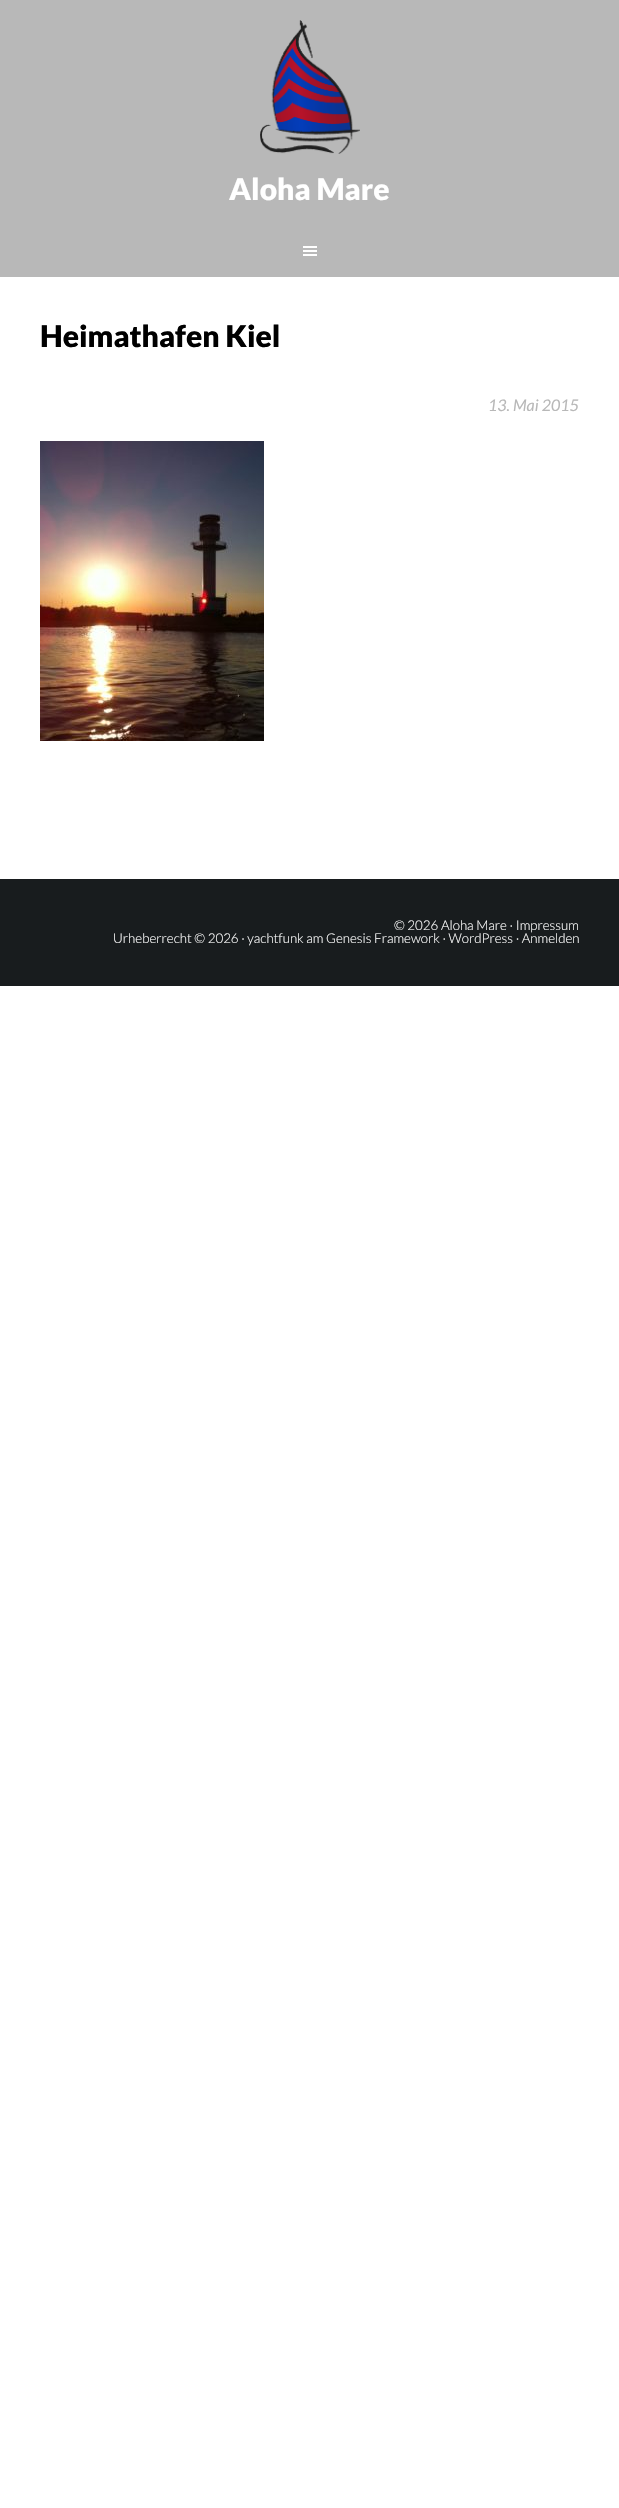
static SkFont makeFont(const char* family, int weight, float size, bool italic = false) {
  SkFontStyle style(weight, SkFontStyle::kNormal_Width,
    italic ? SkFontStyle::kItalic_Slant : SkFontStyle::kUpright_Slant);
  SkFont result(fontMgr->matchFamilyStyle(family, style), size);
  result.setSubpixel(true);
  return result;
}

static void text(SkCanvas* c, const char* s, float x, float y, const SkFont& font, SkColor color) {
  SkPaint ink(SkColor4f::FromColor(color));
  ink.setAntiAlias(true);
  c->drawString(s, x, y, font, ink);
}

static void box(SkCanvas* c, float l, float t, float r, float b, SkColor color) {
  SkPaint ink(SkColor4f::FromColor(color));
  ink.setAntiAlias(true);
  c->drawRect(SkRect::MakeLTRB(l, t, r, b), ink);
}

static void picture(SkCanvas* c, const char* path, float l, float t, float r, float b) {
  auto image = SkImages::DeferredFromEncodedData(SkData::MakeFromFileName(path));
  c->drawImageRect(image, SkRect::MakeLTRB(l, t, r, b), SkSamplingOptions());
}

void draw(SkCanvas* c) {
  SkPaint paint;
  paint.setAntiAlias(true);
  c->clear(0xffffffff);
  box(c, 0, 0, 619, 277, 0xffb8b8b8);
  picture(c, "img_01.png", 260, 20, 360, 154);
  SkFont face1 = makeFont("Lato", 900, 30);
  text(c, "Aloha Mare", 229, 200, face1, 0xffffffff);
  picture(c, "img_02.png", 303, 246, 317, 256);
  text(c, "Heimathafen Kiel", 40, 347, face1, 0xff000000);
  SkFont face2 = makeFont("Lato", 400, 16, true);
  text(c, "13. Mai 2015", 488, 411, face2, 0xffb8b8b8);
  picture(c, "img_03.png", 40, 441, 264, 741);
  box(c, 0, 879, 619, 986, 0xff181c1e);
  SkFont face3 = makeFont("Lato", 300, 13.35f);
  text(c, "© 2026 Aloha Mare · Impressum", 394, 930, face3, 0xffffffff);
  text(c, "Urheberrecht © 2026 · yachtfunk am Genesis Framework · WordPress · Anmelden", 113, 943, face3, 0xffffffff);
}
